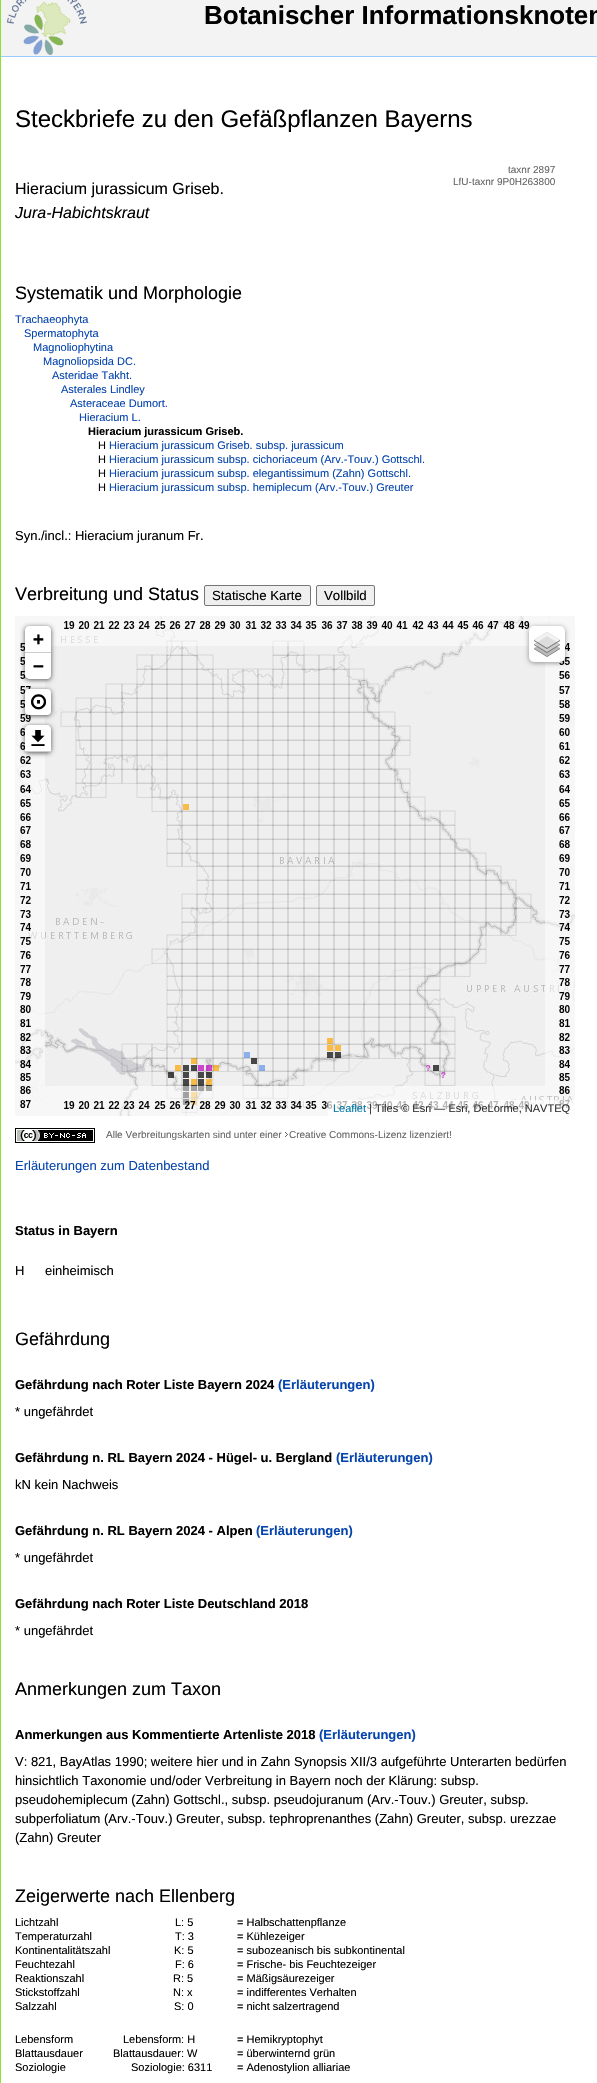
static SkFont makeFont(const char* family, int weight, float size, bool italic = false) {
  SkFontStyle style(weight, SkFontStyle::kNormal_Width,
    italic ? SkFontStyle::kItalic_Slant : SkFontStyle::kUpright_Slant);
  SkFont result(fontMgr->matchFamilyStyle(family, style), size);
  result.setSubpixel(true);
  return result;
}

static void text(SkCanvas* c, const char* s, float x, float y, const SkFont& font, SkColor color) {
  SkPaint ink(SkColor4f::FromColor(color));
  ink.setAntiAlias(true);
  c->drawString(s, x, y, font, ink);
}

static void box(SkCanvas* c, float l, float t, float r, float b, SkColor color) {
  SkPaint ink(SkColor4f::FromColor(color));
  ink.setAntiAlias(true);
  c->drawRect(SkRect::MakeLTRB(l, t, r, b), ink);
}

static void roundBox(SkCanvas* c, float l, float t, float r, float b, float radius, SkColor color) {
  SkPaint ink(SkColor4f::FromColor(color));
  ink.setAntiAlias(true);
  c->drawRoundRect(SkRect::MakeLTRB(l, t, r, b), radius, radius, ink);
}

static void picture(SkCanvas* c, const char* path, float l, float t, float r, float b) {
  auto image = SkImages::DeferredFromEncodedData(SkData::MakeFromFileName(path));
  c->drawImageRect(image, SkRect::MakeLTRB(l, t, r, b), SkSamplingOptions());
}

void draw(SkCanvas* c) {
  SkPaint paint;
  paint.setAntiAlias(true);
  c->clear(0xffffffff);
  paint.setStyle(SkPaint::kStroke_Style);
  paint.setStrokeWidth(1);
  paint.setColor(0xff8ae234);
  c->drawRect(SkRect::MakeLTRB(0.5f, -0.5f, 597.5f, 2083.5f), paint);
  box(c, 1, 0, 597, 56, 0xfff3f3f3);
  box(c, 1, 56, 597, 57, 0xff99ccff);
  picture(c, "img_01.png", 7, 0, 87, 55);
  SkFont face1 = makeFont("Liberation Sans", 700, 26);
  text(c, "Botanischer Informationsknoten", 204, 24, face1, 0xff000000);
  SkFont face2 = makeFont("Liberation Sans", 400, 24);
  text(c, "Steckbriefe zu den Gefäßpflanzen Bayerns", 15, 127, face2, 0xff000000);
  SkFont face3 = makeFont("Liberation Sans", 400, 10);
  text(c, "taxnr 2897", 508, 173, face3, 0xff666666);
  text(c, "LfU-taxnr 9P0H263800", 453, 185, face3, 0xff666666);
  SkFont face4 = makeFont("Liberation Sans", 400, 16);
  text(c, "Hieracium jurassicum Griseb.", 15, 194, face4, 0xff000000);
  SkFont face5 = makeFont("Liberation Sans", 400, 16, true);
  text(c, "Jura-Habichtskraut", 15, 218, face5, 0xff000000);
  SkFont face6 = makeFont("Liberation Sans", 400, 18);
  text(c, "Systematik und Morphologie", 15, 299, face6, 0xff000000);
  SkFont face7 = makeFont("Liberation Sans", 400, 11);
  text(c, "Trachaeophyta", 15, 323, face7, 0xff0645ad);
  text(c, "Spermatophyta", 24, 337, face7, 0xff0645ad);
  text(c, "Magnoliophytina", 33, 351, face7, 0xff0645ad);
  text(c, "Magnoliopsida DC.", 43, 365, face7, 0xff0645ad);
  text(c, "Asteridae Takht.", 52, 379, face7, 0xff0645ad);
  text(c, "Asterales Lindley", 61, 393, face7, 0xff0645ad);
  text(c, "Asteraceae Dumort.", 70, 407, face7, 0xff0645ad);
  text(c, "Hieracium L.", 79, 421, face7, 0xff0645ad);
  SkFont face8 = makeFont("Liberation Sans", 700, 11);
  text(c, "Hieracium jurassicum Griseb.", 88, 435, face8, 0xff000000);
  text(c, "H", 98, 449, face7, 0xff000000);
  text(c, "Hieracium jurassicum Griseb. subsp. jurassicum", 109, 449, face7, 0xff0645ad);
  text(c, "H", 98, 463, face7, 0xff000000);
  text(c, "Hieracium jurassicum subsp. cichoriaceum (Arv.-Touv.) Gottschl.", 109, 463, face7, 0xff0645ad);
  text(c, "H", 98, 477, face7, 0xff000000);
  text(c, "Hieracium jurassicum subsp. elegantissimum (Zahn) Gottschl.", 109, 477, face7, 0xff0645ad);
  text(c, "H", 98, 491, face7, 0xff000000);
  text(c, "Hieracium jurassicum subsp. hemiplecum (Arv.-Touv.) Greuter", 109, 491, face7, 0xff0645ad);
  SkFont face9 = makeFont("Liberation Sans", 400, 13);
  text(c, "Syn./incl.: Hieracium juranum Fr.", 15, 540, face9, 0xff000000);
  text(c, "Verbreitung und Status", 15, 600, face6, 0xff000000);
  paint.setStyle(SkPaint::kFill_Style);
  paint.setColor(0xffefefef);
  c->drawRoundRect(SkRect::MakeLTRB(204.5f, 585.5f, 310.5f, 605.5f), 1.5f, 1.5f, paint);
  paint.setStyle(SkPaint::kStroke_Style);
  paint.setColor(0xff767676);
  c->drawRoundRect(SkRect::MakeLTRB(204.5f, 585.5f, 310.5f, 605.5f), 1.5f, 1.5f, paint);
  SkFont face10 = makeFont("Liberation Sans", 400, 13.25f);
  text(c, "Statische Karte", 212, 600, face10, 0xff000000);
  paint.setStyle(SkPaint::kFill_Style);
  paint.setColor(0xffefefef);
  c->drawRoundRect(SkRect::MakeLTRB(316.5f, 585.5f, 374.5f, 605.5f), 1.5f, 1.5f, paint);
  paint.setStyle(SkPaint::kStroke_Style);
  paint.setColor(0xff767676);
  c->drawRoundRect(SkRect::MakeLTRB(316.5f, 585.5f, 374.5f, 605.5f), 1.5f, 1.5f, paint);
  text(c, "Vollbild", 324, 600, face10, 0xff000000);
  box(c, 15, 616, 25, 621, 0xffefefef);
  picture(c, "img_02.png", 25, 616, 281, 621);
  picture(c, "img_03.png", 281, 616, 537, 621);
  picture(c, "img_04.png", 537, 616, 575, 621);
  picture(c, "img_05.png", 15, 621, 25, 877);
  picture(c, "img_06.png", 25, 621, 281, 877);
  picture(c, "img_07.png", 281, 621, 537, 877);
  picture(c, "img_08.png", 537, 621, 575, 877);
  picture(c, "img_09.png", 15, 877, 25, 1116);
  picture(c, "img_10.png", 25, 877, 281, 1116);
  picture(c, "img_11.png", 281, 877, 537, 1116);
  picture(c, "img_12.png", 537, 877, 575, 1116);
  picture(c, "img_15.png", 168, 804, 446, 1105);
  picture(c, "img_14.png", 60, 640, 532, 1113);
  picture(c, "img_13.png", 15, 616, 575, 1116);
  paint.setStyle(SkPaint::kFill_Style);
  paint.setColor(0xa6000000);
  paint.setMaskFilter(SkMaskFilter::MakeBlur(kNormal_SkBlurStyle, 2.5f));
  c->drawRoundRect(SkRect::MakeLTRB(25, 627, 51, 680), 4, 4, paint);
  paint.setMaskFilter(nullptr);
  paint.setColor(0xffffffff);
  c->drawPath(SkPathBuilder().moveTo(29, 626).lineTo(47, 626).cubicTo(49, 626, 51, 628, 51, 630).lineTo(51, 653).lineTo(25, 653).lineTo(25, 630).cubicTo(25, 628, 27, 626, 29, 626).close().detach(), paint);
  box(c, 25, 652, 51, 653, 0xffcccccc);
  SkFont face11 = makeFont("DejaVu Sans Mono", 700, 18);
  text(c, "+", 33, 645, face11, 0xff000000);
  c->drawPath(SkPathBuilder().moveTo(25, 653).lineTo(51, 653).lineTo(51, 675).cubicTo(51, 677, 49, 679, 47, 679).lineTo(29, 679).cubicTo(27, 679, 25, 677, 25, 675).close().detach(), paint);
  text(c, "−", 33, 672, face11, 0xff000000);
  paint.setColor(0xa6000000);
  paint.setMaskFilter(SkMaskFilter::MakeBlur(kNormal_SkBlurStyle, 2.5f));
  c->drawRoundRect(SkRect::MakeLTRB(25, 690, 51, 716), 4, 4, paint);
  paint.setMaskFilter(nullptr);
  roundBox(c, 25, 689, 51, 715, 4, 0xffffffff);
  SkFont face12 = makeFont("DejaVu Sans", 700, 22);
  text(c, "⊙", 29, 709, face12, 0xff000000);
  paint.setMaskFilter(SkMaskFilter::MakeBlur(kNormal_SkBlurStyle, 2.5f));
  c->drawRoundRect(SkRect::MakeLTRB(25, 726, 51, 753), 4, 4, paint);
  paint.setMaskFilter(nullptr);
  paint.setColor(0xffffffff);
  c->drawPath(SkPathBuilder().moveTo(29, 725).lineTo(47, 725).cubicTo(49, 725, 51, 727, 51, 729).lineTo(51, 752).lineTo(25, 752).lineTo(25, 729).cubicTo(25, 727, 27, 725, 29, 725).close().detach(), paint);
  picture(c, "img_16.png", 31, 730, 45, 746);
  box(c, 25, 751, 51, 752, 0xffcccccc);
  paint.setColor(0x66000000);
  paint.setMaskFilter(SkMaskFilter::MakeBlur(kNormal_SkBlurStyle, 2.5f));
  c->drawRoundRect(SkRect::MakeLTRB(529, 627, 565, 663), 5, 5, paint);
  paint.setMaskFilter(nullptr);
  roundBox(c, 529, 626, 565, 662, 5, 0xffffffff);
  picture(c, "img_17.png", 534, 632, 560, 657);
  box(c, 328, 1100, 575, 1116, 0xb3ffffff);
  text(c, "Leaflet", 333, 1112, face7, 0xff0078a8);
  text(c, "| Tiles © Esri — Esri, DeLorme, NAVTEQ", 369, 1112, face7, 0xff333333);
  picture(c, "img_18.png", 15, 1128, 95, 1143);
  text(c, "Alle Verbreitungskarten sind unter einer", 106, 1138, face3, 0xff666666);
  picture(c, "img_19.png", 285, 1132, 288, 1137);
  text(c, "Creative Commons-Lizenz lizenziert!", 289, 1138, face3, 0xff666666);
  text(c, "Erläuterungen zum Datenbestand", 15, 1170, face9, 0xff0645ad);
  SkFont face13 = makeFont("Liberation Sans", 700, 13);
  text(c, "Status in Bayern", 15, 1235, face13, 0xff000000);
  text(c, "H", 15, 1275, face9, 0xff000000);
  text(c, "einheimisch", 45, 1275, face9, 0xff000000);
  text(c, "Gefährdung", 15, 1345, face6, 0xff000000);
  text(c, "Gefährdung nach Roter Liste Bayern 2024", 15, 1389, face13, 0xff000000);
  text(c, "(Erläuterungen)", 278, 1389, face13, 0xff0645ad);
  text(c, "* ungefährdet", 15, 1416, face9, 0xff000000);
  text(c, "Gefährdung n. RL Bayern 2024 - Hügel- u. Bergland", 15, 1462, face13, 0xff000000);
  text(c, "(Erläuterungen)", 336, 1462, face13, 0xff0645ad);
  text(c, "kN kein Nachweis", 15, 1489, face9, 0xff000000);
  text(c, "Gefährdung n. RL Bayern 2024 - Alpen", 15, 1535, face13, 0xff000000);
  text(c, "(Erläuterungen)", 256, 1535, face13, 0xff0645ad);
  text(c, "* ungefährdet", 15, 1562, face9, 0xff000000);
  text(c, "Gefährdung nach Roter Liste Deutschland 2018", 15, 1608, face13, 0xff000000);
  text(c, "* ungefährdet", 15, 1635, face9, 0xff000000);
  text(c, "Anmerkungen zum Taxon", 15, 1695, face6, 0xff000000);
  text(c, "Anmerkungen aus Kommentierte Artenliste 2018", 15, 1739, face13, 0xff000000);
  text(c, "(Erläuterungen)", 319, 1739, face13, 0xff0645ad);
  text(c, "V: 821, BayAtlas 1990; weitere hier und in Zahn Synopsis XII/3 aufgeführte Unterarten bedürfen", 15, 1766, face9, 0xff000000);
  text(c, "hinsichtlich Taxonomie und/oder Verbreitung in Bayern noch der Klärung: subsp.", 15, 1785, face9, 0xff000000);
  text(c, "pseudohemiplecum (Zahn) Gottschl., subsp. pseudojuranum (Arv.-Touv.) Greuter, subsp.", 15, 1804, face9, 0xff000000);
  text(c, "subperfoliatum (Arv.-Touv.) Greuter, subsp. tephroprenanthes (Zahn) Greuter, subsp. urezzae", 15, 1823, face9, 0xff000000);
  text(c, "(Zahn) Greuter", 15, 1842, face9, 0xff000000);
  text(c, "Zeigerwerte nach Ellenberg", 15, 1902, face6, 0xff000000);
  text(c, "Lichtzahl", 15, 1926, face7, 0xff000000);
  text(c, "L: 5", 175, 1926, face7, 0xff000000);
  text(c, "= Halbschattenpflanze", 237, 1926, face7, 0xff000000);
  text(c, "Temperaturzahl", 15, 1940, face7, 0xff000000);
  text(c, "T: 3", 175, 1940, face7, 0xff000000);
  text(c, "= Kühlezeiger", 237, 1940, face7, 0xff000000);
  text(c, "Kontinentalitätszahl", 15, 1954, face7, 0xff000000);
  text(c, "K: 5", 174, 1954, face7, 0xff000000);
  text(c, "= subozeanisch bis subkontinental", 237, 1954, face7, 0xff000000);
  text(c, "Feuchtezahl", 15, 1968, face7, 0xff000000);
  text(c, "F: 6", 175, 1968, face7, 0xff000000);
  text(c, "= Frische- bis Feuchtezeiger", 237, 1968, face7, 0xff000000);
  text(c, "Reaktionszahl", 15, 1982, face7, 0xff000000);
  text(c, "R: 5", 173, 1982, face7, 0xff000000);
  text(c, "= Mäßigsäurezeiger", 237, 1982, face7, 0xff000000);
  text(c, "Stickstoffzahl", 15, 1996, face7, 0xff000000);
  text(c, "N: x", 173, 1996, face7, 0xff000000);
  text(c, "= indifferentes Verhalten", 237, 1996, face7, 0xff000000);
  text(c, "Salzzahl", 15, 2010, face7, 0xff000000);
  text(c, "S: 0", 174, 2010, face7, 0xff000000);
  text(c, "= nicht salzertragend", 237, 2010, face7, 0xff000000);
  text(c, "Lebensform", 15, 2043, face7, 0xff000000);
  text(c, "Lebensform: H", 123, 2043, face7, 0xff000000);
  text(c, "= Hemikryptophyt", 237, 2043, face7, 0xff000000);
  text(c, "Blattausdauer", 15, 2057, face7, 0xff000000);
  text(c, "Blattausdauer: W", 113, 2057, face7, 0xff000000);
  text(c, "= überwinternd grün", 237, 2057, face7, 0xff000000);
  text(c, "Soziologie", 15, 2071, face7, 0xff000000);
  text(c, "Soziologie: 6311", 131, 2071, face7, 0xff000000);
  text(c, "= Adenostylion alliariae", 237, 2071, face7, 0xff000000);
}
